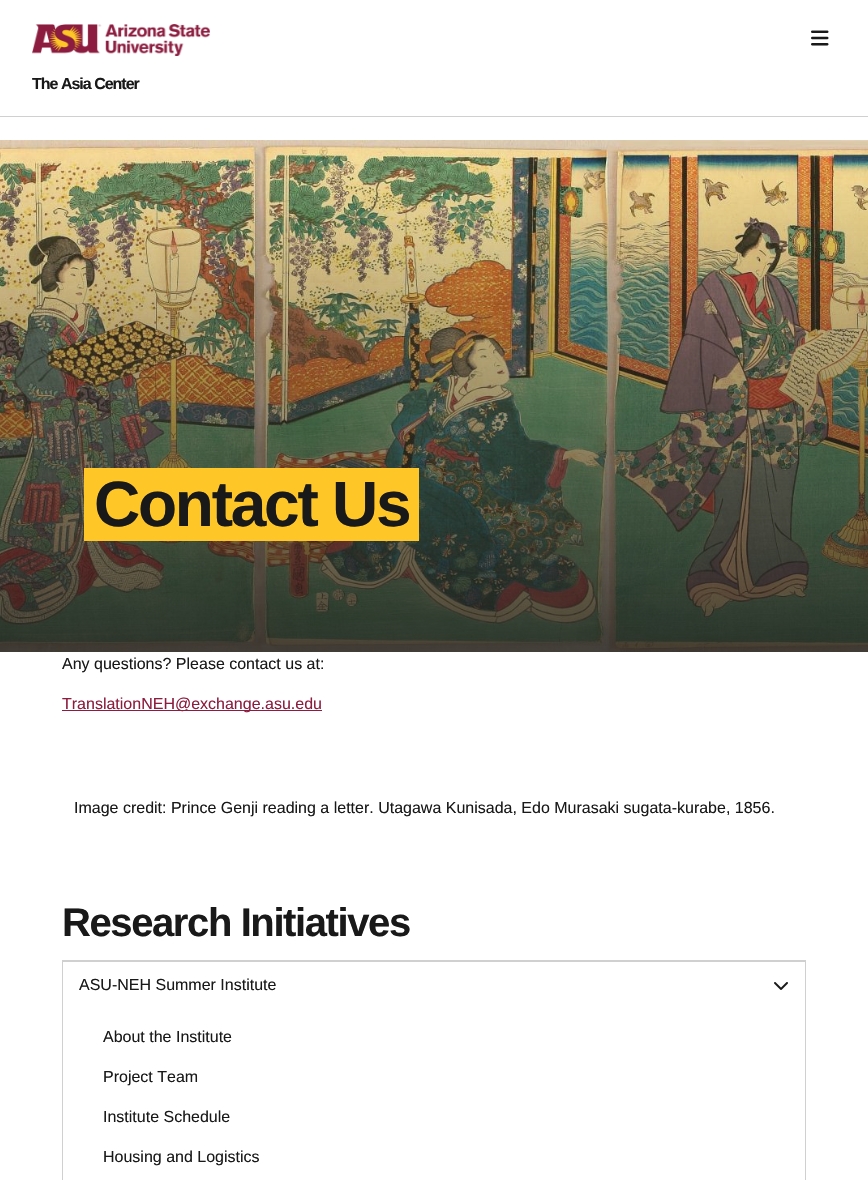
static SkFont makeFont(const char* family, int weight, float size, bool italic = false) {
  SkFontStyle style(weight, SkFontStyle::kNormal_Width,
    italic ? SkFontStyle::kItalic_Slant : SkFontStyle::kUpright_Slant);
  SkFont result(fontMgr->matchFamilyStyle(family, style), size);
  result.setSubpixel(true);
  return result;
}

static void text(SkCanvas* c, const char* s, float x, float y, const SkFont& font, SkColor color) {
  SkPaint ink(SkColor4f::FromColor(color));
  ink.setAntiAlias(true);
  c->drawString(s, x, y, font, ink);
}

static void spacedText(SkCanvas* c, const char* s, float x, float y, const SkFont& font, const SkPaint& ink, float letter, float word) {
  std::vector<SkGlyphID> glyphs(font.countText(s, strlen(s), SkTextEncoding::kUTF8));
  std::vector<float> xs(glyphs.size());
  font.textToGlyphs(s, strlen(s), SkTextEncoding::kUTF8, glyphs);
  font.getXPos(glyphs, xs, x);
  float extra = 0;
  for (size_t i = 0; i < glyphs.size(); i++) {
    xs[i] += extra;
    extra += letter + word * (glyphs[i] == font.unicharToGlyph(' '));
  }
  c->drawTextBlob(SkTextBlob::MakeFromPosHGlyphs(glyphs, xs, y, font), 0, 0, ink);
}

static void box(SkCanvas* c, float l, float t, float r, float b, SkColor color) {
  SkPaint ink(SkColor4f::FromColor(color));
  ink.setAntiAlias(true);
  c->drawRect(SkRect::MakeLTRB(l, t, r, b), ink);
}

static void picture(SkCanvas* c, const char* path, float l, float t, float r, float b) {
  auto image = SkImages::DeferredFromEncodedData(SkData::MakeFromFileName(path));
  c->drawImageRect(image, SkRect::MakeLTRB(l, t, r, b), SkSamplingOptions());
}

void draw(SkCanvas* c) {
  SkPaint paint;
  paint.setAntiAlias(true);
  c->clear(0xffffffff);
  box(c, 0, 116, 868, 117, 0xffd0d0d0);
  picture(c, "img_01.png", 32, 24, 210, 56);
  picture(c, "img_02.png", 811, 30, 829, 46);
  SkFont face1 = makeFont("Liberation Sans", 700, 16);
  paint.setColor(0xff191919);
  spacedText(c, "The Asia Center", 32, 89, face1, paint, -1, 0);
  picture(c, "img_03.png", 0, 140, 868, 652);
  box(c, 84, 468, 409, 541, 0xffffc627);
  SkFont face2 = makeFont("Liberation Sans", 700, 64);
  spacedText(c, "Contact Us", 94, 526, face2, paint, -2.25f, 0);
  box(c, 409, 468, 419, 541, 0xffffc627);
  SkFont face3 = makeFont("Liberation Sans", 400, 16);
  text(c, "Any questions? Please contact us at:", 62, 669, face3, 0xff191919);
  box(c, 62, 710, 322, 711, 0xff8c1d40);
  text(c, "TranslationNEH@exchange.asu.edu", 62, 709, face3, 0xff8c1d40);
  text(c, "Image credit: Prince Genji reading a letter. Utagawa Kunisada, Edo Murasaki sugata-kurabe, 1856.", 74, 813, face3, 0xff191919);
  SkFont face4 = makeFont("Liberation Sans", 700, 40);
  spacedText(c, "Research Initiatives", 62, 936, face4, paint, -1.4f, 0);
  paint.setStyle(SkPaint::kStroke_Style);
  paint.setStrokeWidth(1);
  paint.setColor(0xffd0d0d0);
  c->drawRect(SkRect::MakeLTRB(62.5f, 960.5f, 805.5f, 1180.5f), paint);
  box(c, 63, 961, 805, 962, 0xffd0d0d0);
  text(c, "ASU-NEH Summer Institute", 79, 990, face3, 0xff191919);
  picture(c, "img_04.png", 774, 982, 788, 990);
  text(c, "About the Institute", 103, 1042, face3, 0xff191919);
  text(c, "Project Team", 103, 1082, face3, 0xff191919);
  text(c, "Institute Schedule", 103, 1122, face3, 0xff191919);
  text(c, "Housing and Logistics", 103, 1162, face3, 0xff191919);
}
